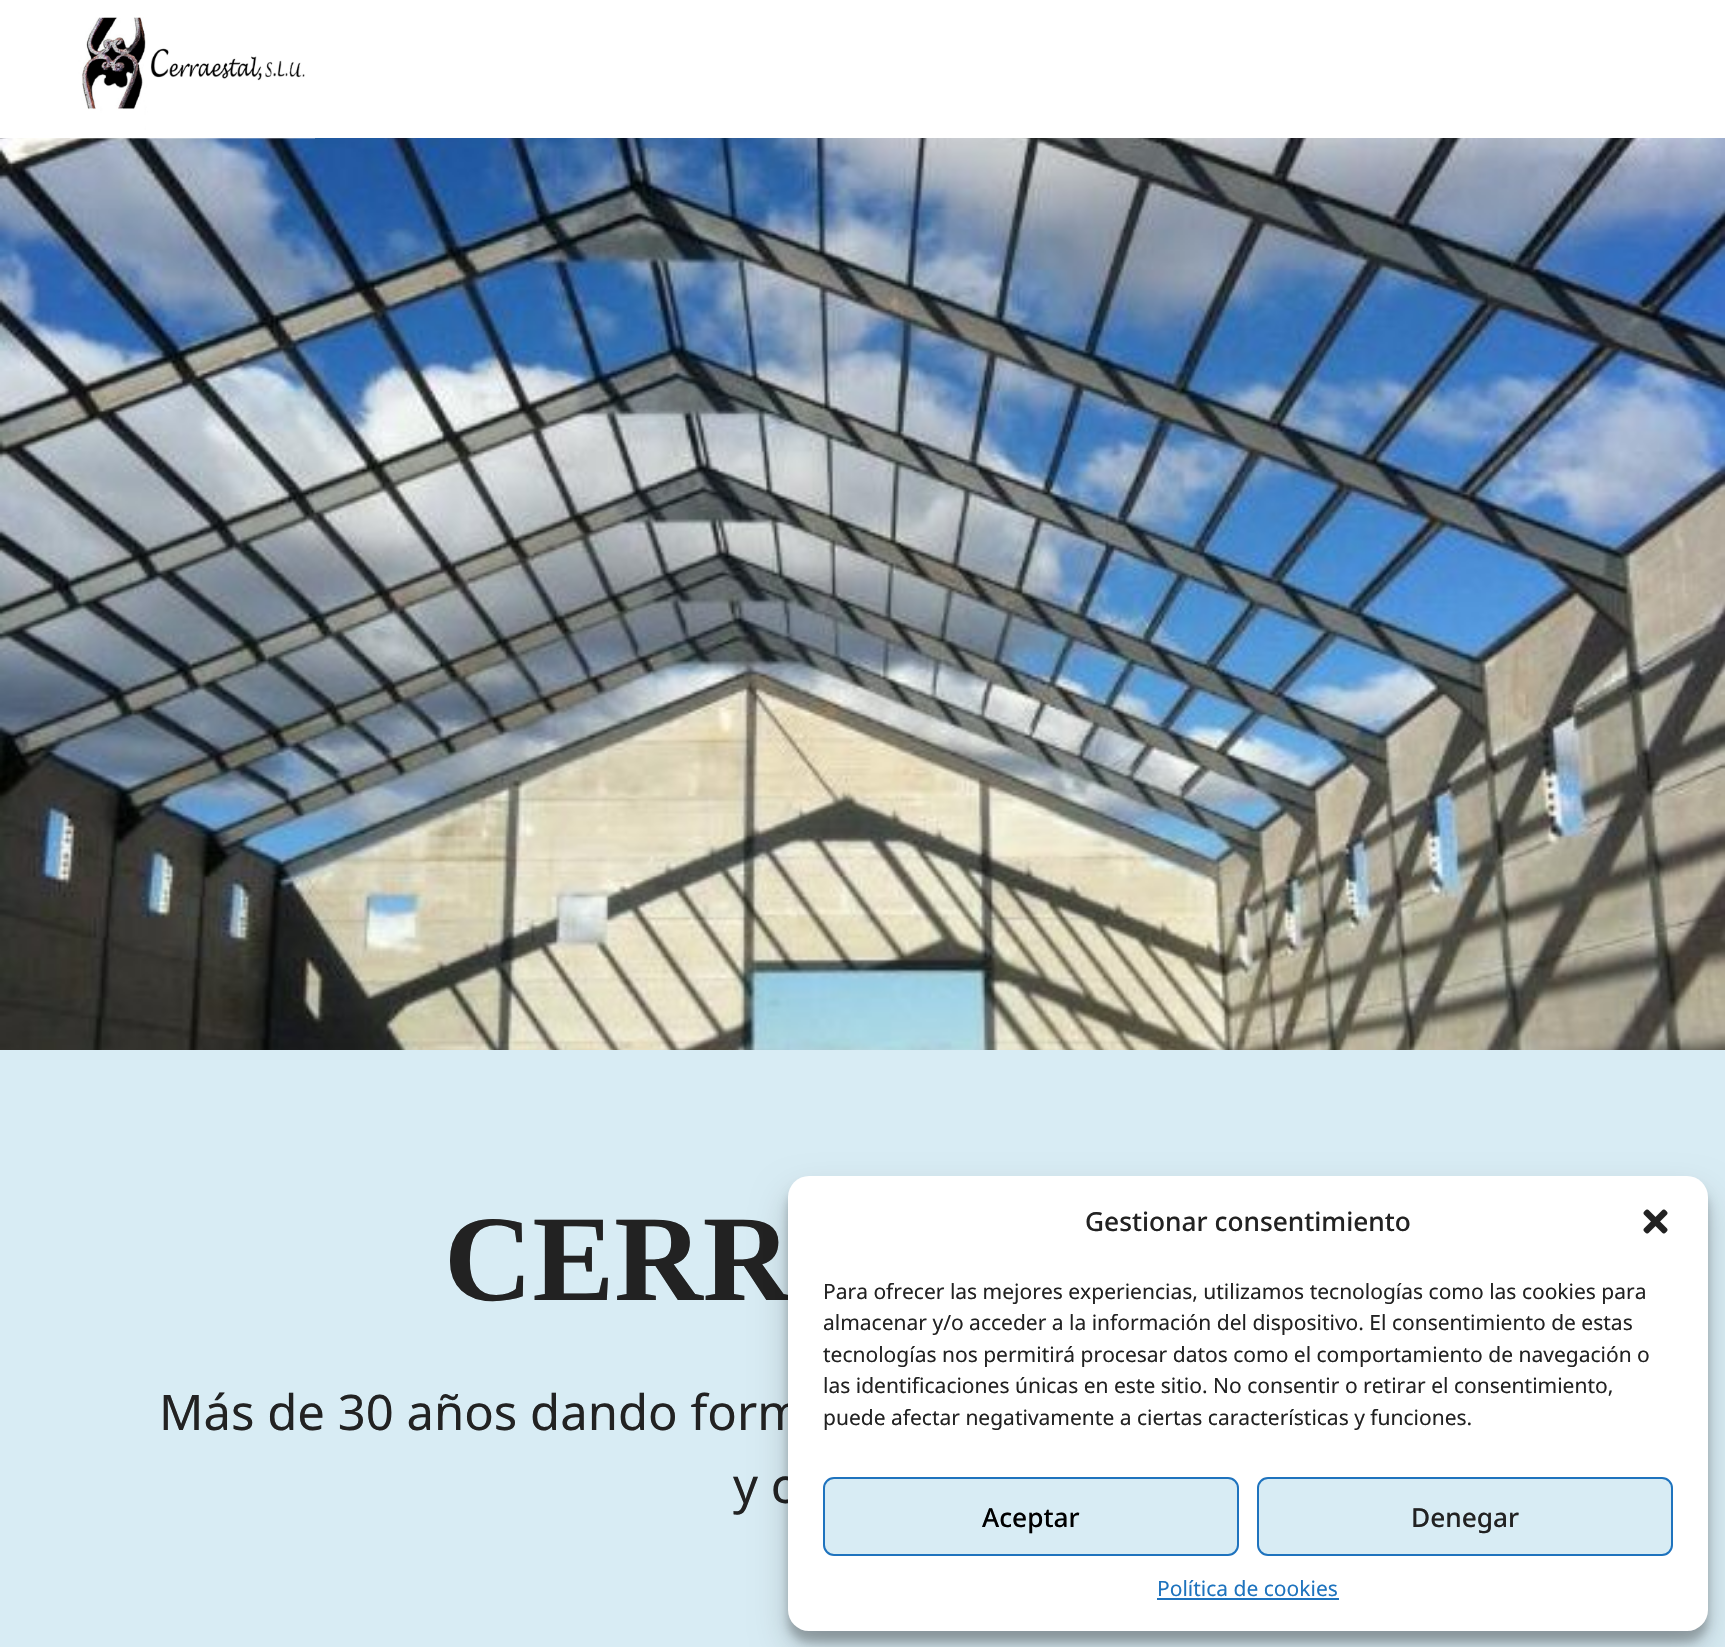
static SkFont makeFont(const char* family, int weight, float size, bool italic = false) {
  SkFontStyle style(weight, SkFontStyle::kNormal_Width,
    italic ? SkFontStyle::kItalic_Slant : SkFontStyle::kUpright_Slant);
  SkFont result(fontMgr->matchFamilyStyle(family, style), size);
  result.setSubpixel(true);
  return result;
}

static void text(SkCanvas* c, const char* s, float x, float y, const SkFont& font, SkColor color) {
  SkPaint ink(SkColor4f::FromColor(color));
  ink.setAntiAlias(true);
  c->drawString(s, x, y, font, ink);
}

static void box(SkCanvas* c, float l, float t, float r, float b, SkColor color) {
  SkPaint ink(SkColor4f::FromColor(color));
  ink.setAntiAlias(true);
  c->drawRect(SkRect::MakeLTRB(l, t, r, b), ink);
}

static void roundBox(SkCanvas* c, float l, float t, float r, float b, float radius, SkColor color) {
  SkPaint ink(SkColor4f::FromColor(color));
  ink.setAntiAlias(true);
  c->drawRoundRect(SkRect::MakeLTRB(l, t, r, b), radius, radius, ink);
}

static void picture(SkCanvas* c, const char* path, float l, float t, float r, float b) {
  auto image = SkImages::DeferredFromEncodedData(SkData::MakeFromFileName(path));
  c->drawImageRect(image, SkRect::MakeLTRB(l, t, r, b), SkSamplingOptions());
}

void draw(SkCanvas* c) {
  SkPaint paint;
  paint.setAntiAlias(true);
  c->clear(0xffd8ecf4);
  box(c, 0, 0, 1725, 138, 0xffffffff);
  picture(c, "img_02.png", 0, 138, 1725, 1050);
  picture(c, "img_01.png", 70, 17, 315, 139);
  SkFont face1 = makeFont("Liberation Serif", 700, 122.5f);
  text(c, "CERR", 444, 1300, face1, 0xff222222);
  SkFont face2 = makeFont("Noto Sans", 400, 49);
  text(c, "Más de 30 años dando form", 159, 1430, face2, 0xff222222);
  text(c, "y c", 733, 1503, face2, 0xff222222);
  paint.setColor(0x3b000000);
  paint.setMaskFilter(SkMaskFilter::MakeBlur(kNormal_SkBlurStyle, 5));
  c->drawRoundRect(SkRect::MakeLTRB(788, 1187, 1708, 1642), 21, 21, paint);
  paint.setMaskFilter(nullptr);
  paint.setColor(0x30000000);
  paint.setMaskFilter(SkMaskFilter::MakeBlur(kNormal_SkBlurStyle, 17.5f));
  c->drawRoundRect(SkRect::MakeLTRB(788, 1194, 1708, 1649), 21, 21, paint);
  paint.setMaskFilter(nullptr);
  roundBox(c, 788, 1176, 1708, 1631, 21, 0xffffffff);
  SkFont face3 = makeFont("Noto Sans", 500, 26.25f);
  text(c, "Gestionar consentimiento", 1085, 1231, face3, 0xff222222);
  picture(c, "img_03.png", 1643, 1209, 1668, 1234);
  SkFont face4 = makeFont("Noto Sans", 400, 21);
  text(c, "Para ofrecer las mejores experiencias, utilizamos tecnologías como las cookies para", 823, 1299, face4, 0xff222222);
  text(c, "almacenar y/o acceder a la información del dispositivo. El consentimiento de estas", 823, 1330, face4, 0xff222222);
  text(c, "tecnologías nos permitirá procesar datos como el comportamiento de navegación o", 823, 1362, face4, 0xff222222);
  text(c, "las identificaciones únicas en este sitio. No consentir o retirar el consentimiento,", 823, 1393, face4, 0xff222222);
  text(c, "puede afectar negativamente a ciertas características y funciones.", 823, 1425, face4, 0xff222222);
  paint.setColor(0xffd8ecf4);
  c->drawRoundRect(SkRect::MakeLTRB(824, 1478, 1238, 1555), 10, 10, paint);
  paint.setStyle(SkPaint::kStroke_Style);
  paint.setStrokeWidth(2);
  paint.setColor(0xff1e73be);
  c->drawRoundRect(SkRect::MakeLTRB(824, 1478, 1238, 1555), 10, 10, paint);
  text(c, "Aceptar", 982, 1527, face3, 0xff000000);
  paint.setStyle(SkPaint::kFill_Style);
  paint.setColor(0xffd8ecf4);
  c->drawRoundRect(SkRect::MakeLTRB(1258, 1478, 1672, 1555), 10, 10, paint);
  paint.setStyle(SkPaint::kStroke_Style);
  paint.setColor(0xff1e73be);
  c->drawRoundRect(SkRect::MakeLTRB(1258, 1478, 1672, 1555), 10, 10, paint);
  text(c, "Denegar", 1411, 1527, face3, 0xff222222);
  text(c, "Política de cookies", 1157, 1596, face4, 0xff1e73be);
  box(c, 1157, 1598, 1339, 1600, 0xff1e73be);
}
